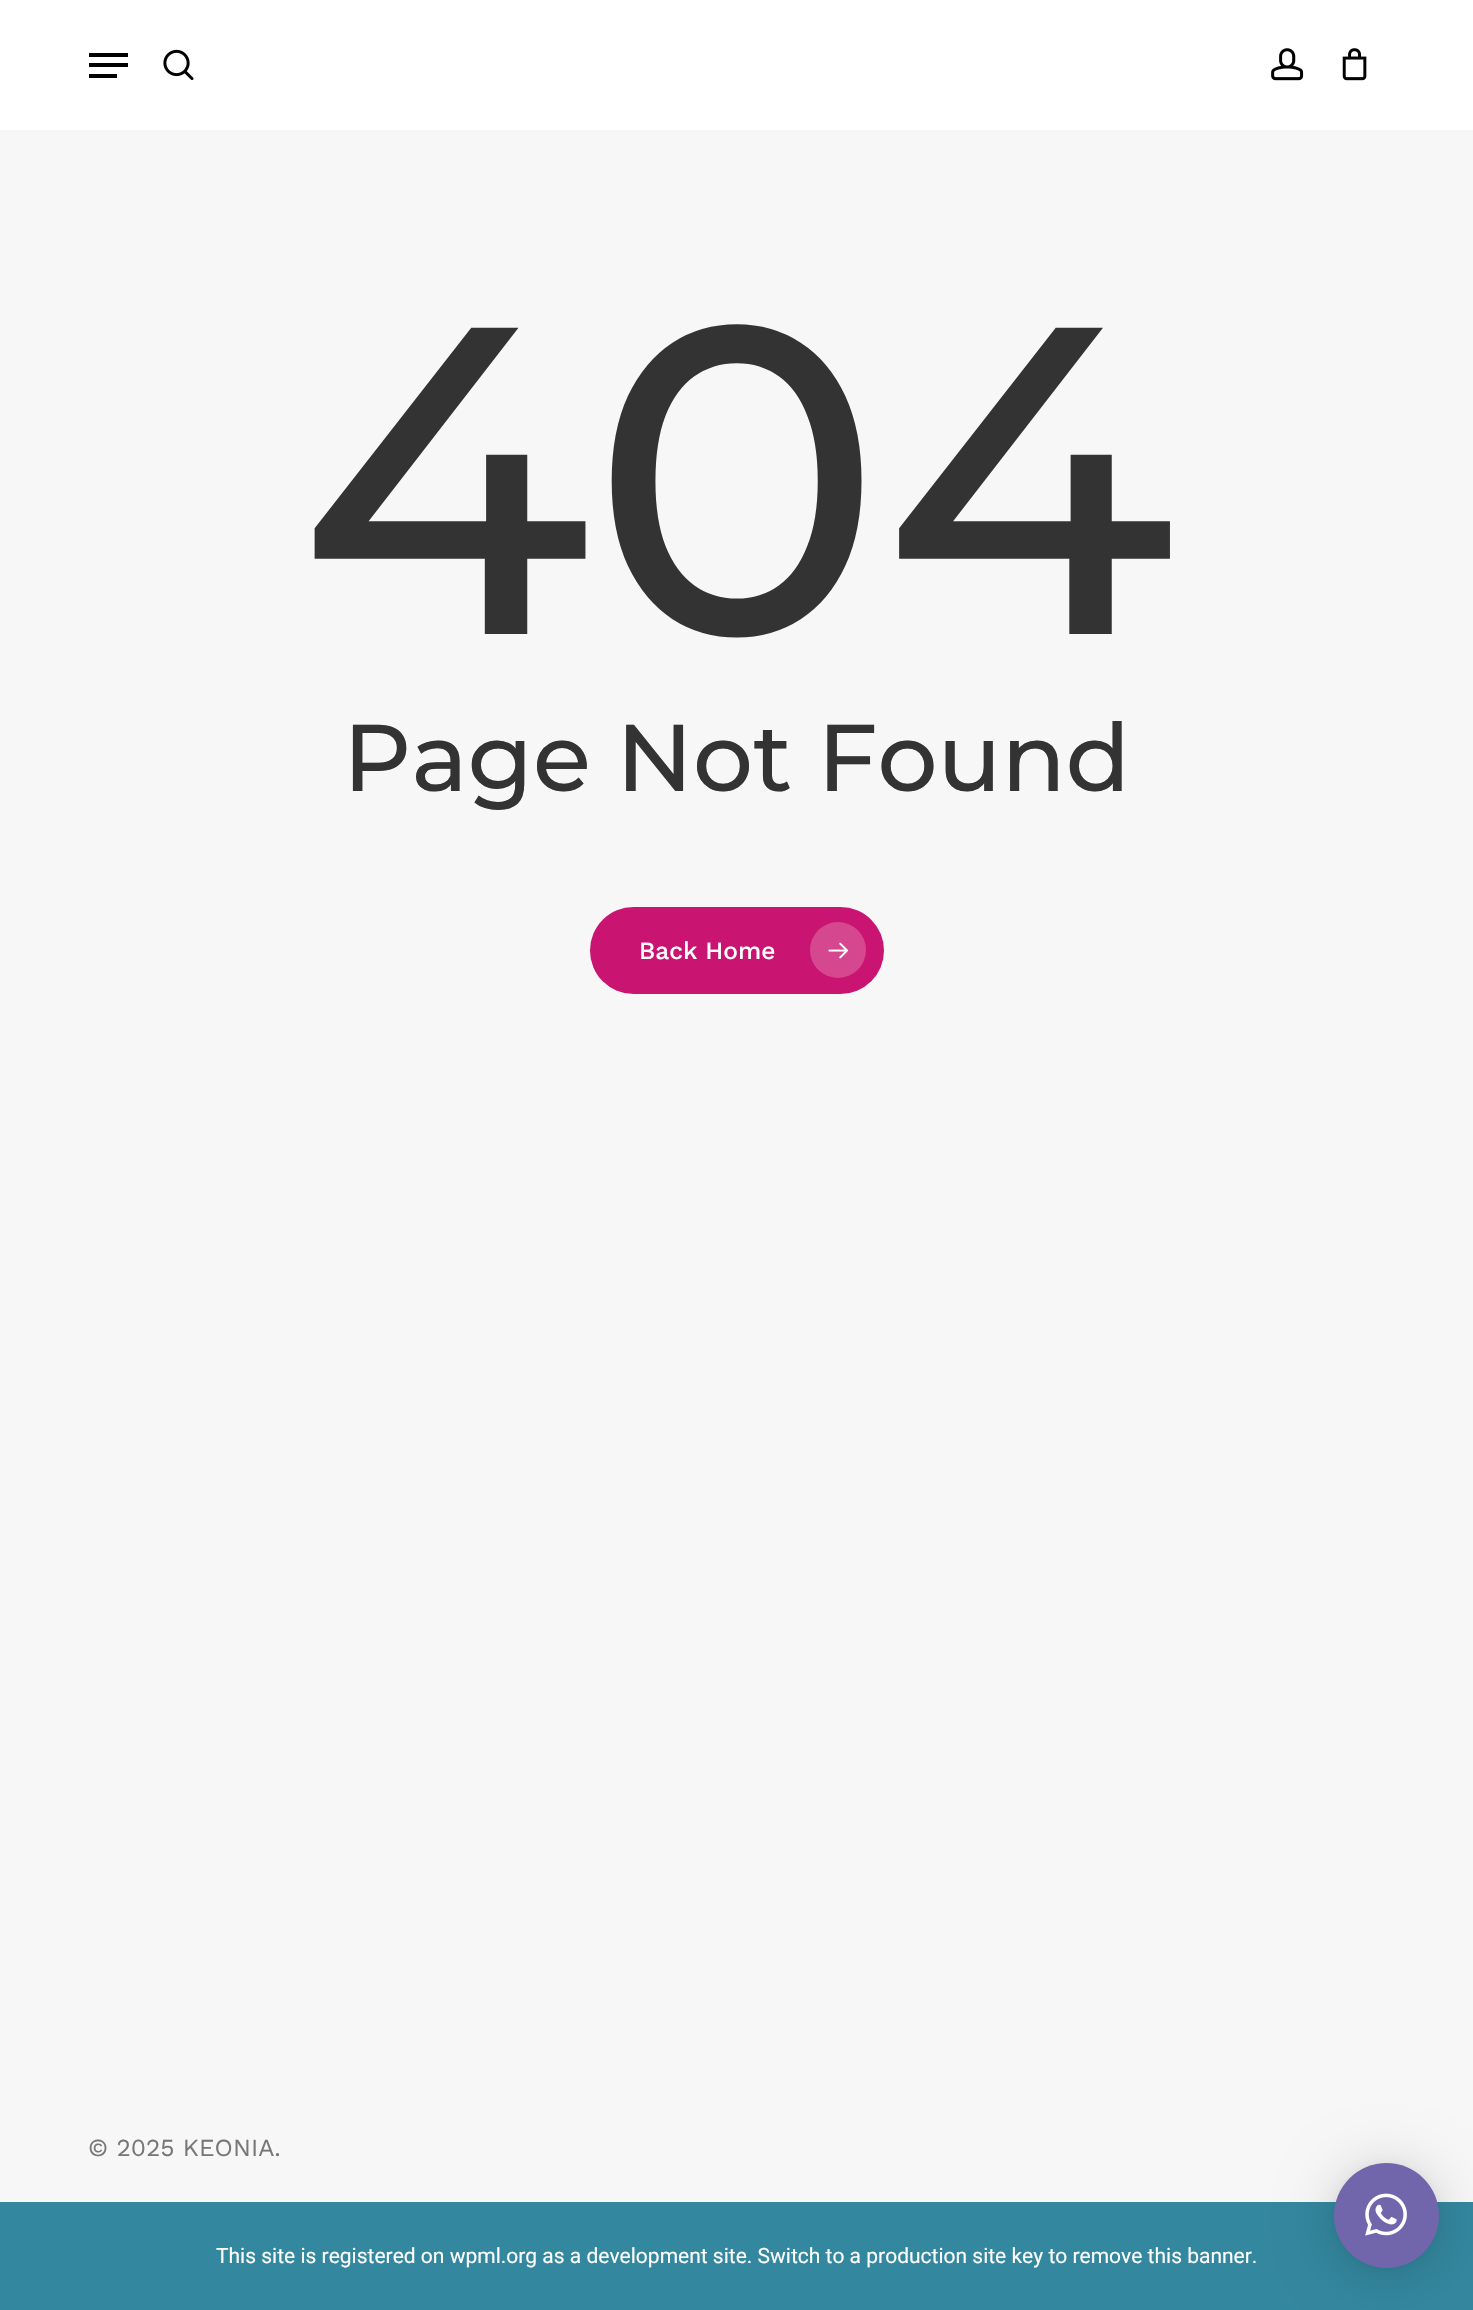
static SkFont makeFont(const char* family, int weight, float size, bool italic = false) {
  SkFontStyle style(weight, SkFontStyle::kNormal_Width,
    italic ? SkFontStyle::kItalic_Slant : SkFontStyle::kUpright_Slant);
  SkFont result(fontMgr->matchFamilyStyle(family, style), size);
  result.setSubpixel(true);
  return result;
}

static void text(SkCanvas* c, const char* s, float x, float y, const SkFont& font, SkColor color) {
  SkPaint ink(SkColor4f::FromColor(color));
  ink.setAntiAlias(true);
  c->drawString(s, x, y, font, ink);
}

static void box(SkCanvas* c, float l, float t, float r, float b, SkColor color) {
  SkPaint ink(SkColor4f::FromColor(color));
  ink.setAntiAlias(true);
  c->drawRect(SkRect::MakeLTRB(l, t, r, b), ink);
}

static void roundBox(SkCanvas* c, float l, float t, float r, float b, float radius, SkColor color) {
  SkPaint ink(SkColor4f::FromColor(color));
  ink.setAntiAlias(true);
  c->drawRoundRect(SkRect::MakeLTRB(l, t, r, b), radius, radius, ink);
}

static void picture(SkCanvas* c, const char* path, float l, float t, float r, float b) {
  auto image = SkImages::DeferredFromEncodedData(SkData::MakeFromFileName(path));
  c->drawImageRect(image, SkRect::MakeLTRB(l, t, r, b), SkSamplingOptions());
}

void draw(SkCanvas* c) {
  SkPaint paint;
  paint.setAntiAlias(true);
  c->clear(0xfff7f7f7);
  box(c, 0, 0, 1473, 130, 0xffffffff);
  box(c, 89, 53, 128, 57, 0xff000000);
  box(c, 89, 74, 117, 78, 0xff000000);
  box(c, 89, 63, 128, 67, 0xff000000);
  picture(c, "img_01.png", 163, 49, 194, 81);
  picture(c, "img_02.png", 1271, 48, 1304, 81);
  picture(c, "img_03.png", 1342, 48, 1367, 81);
  SkFont face1 = makeFont("Montserrat", 500, 437.5f);
  text(c, "404", 298, 634, face1, 0xff333333);
  SkFont face2 = makeFont("Montserrat", 500, 94.5f);
  text(c, "Page Not Found", 343, 791, face2, 0xff333333);
  roundBox(c, 590, 907, 884, 994, 43.5f, 0xffc91571);
  SkFont face3 = makeFont("Work Sans", 500, 24.5f);
  text(c, "Back Home", 639, 959, face3, 0xffffffff);
  paint.setColor(0xffd54890);
  c->drawCircle(838, 950, 28, paint);
  picture(c, "img_04.png", 828, 942, 848, 959);
  SkFont face4 = makeFont("Work Sans", 400, 24.5f);
  text(c, "© 2025 KEONIA.", 88, 2156, face4, 0xff777777);
  box(c, 0, 2202, 1473, 2310, 0xff33879e);
  SkFont face5 = makeFont("Roboto", 400, 21);
  text(c, "This site is registered on wpml.org as a development site. Switch to a production site key to remove this banner.", 216, 2263, face5, 0xffffffff);
  paint.setColor(0x29000000);
  paint.setMaskFilter(SkMaskFilter::MakeBlur(kNormal_SkBlurStyle, 28));
  c->drawRoundRect(SkRect::MakeLTRB(1334, 2167, 1439, 2272), 52.5f, 52.5f, paint);
  paint.setMaskFilter(nullptr);
  paint.setColor(0x0f000000);
  paint.setMaskFilter(SkMaskFilter::MakeBlur(kNormal_SkBlurStyle, 5));
  c->drawRoundRect(SkRect::MakeLTRB(1334, 2165, 1439, 2270), 52.5f, 52.5f, paint);
  paint.setMaskFilter(nullptr);
  paint.setColor(0xff7166ab);
  c->drawCircle(1386.5f, 2215.5f, 52.5f, paint);
  picture(c, "img_05.png", 1365, 2193, 1407, 2236);
}
